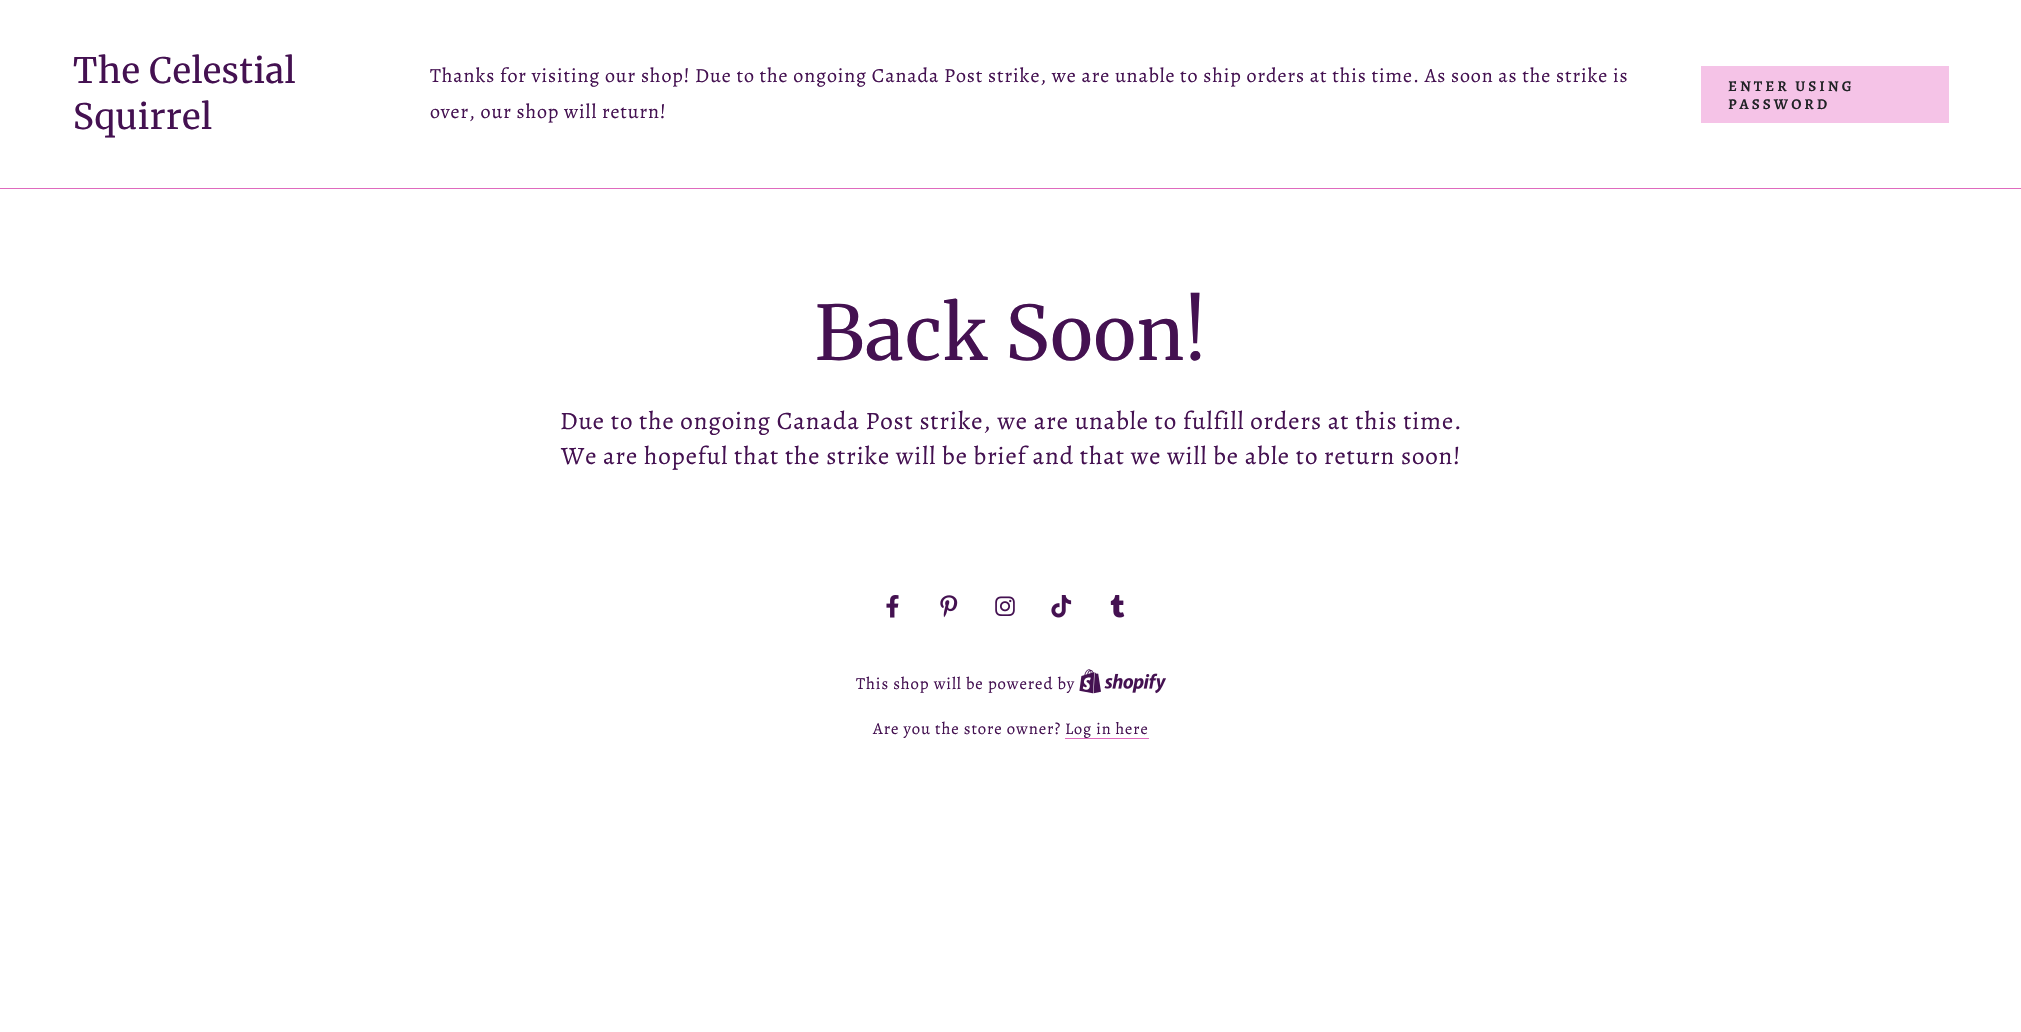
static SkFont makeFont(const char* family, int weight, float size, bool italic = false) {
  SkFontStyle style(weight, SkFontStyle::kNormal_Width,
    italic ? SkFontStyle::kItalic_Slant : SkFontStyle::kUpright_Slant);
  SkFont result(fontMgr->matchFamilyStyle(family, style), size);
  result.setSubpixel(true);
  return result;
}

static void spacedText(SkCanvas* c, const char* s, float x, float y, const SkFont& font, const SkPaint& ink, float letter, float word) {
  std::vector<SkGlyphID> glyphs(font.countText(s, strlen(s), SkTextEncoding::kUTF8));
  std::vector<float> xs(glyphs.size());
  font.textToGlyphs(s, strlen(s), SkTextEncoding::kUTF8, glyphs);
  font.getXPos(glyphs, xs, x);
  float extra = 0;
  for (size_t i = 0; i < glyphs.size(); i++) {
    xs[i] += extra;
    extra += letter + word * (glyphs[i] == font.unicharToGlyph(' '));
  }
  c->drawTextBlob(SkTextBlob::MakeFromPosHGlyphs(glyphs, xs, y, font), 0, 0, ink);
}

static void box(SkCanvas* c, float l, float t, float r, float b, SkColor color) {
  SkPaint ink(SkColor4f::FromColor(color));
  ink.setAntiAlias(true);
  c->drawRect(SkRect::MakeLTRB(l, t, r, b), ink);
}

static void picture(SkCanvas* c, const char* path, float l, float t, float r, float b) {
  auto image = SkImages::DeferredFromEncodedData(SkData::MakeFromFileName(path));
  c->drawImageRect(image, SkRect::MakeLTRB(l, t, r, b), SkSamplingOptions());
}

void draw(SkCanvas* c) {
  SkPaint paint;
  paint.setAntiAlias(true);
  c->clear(0xffffffff);
  SkFont face1 = makeFont("Merriweather", 400, 35);
  paint.setColor(0xff441151);
  spacedText(c, "The Celestial", 73, 83, face1, paint, 0.75f, 0);
  spacedText(c, "Squirrel", 73, 129, face1, paint, 0.75f, 0);
  SkFont face2 = makeFont("Alegreya", 400, 20);
  spacedText(c, "Thanks for visiting our shop! Due to the ongoing Canada Post strike, we are unable to ship orders at this time. As soon as the strike is", 430, 82, face2, paint, 0.88f, 0);
  spacedText(c, "over, our shop will return!", 430, 118, face2, paint, 0.88f, 0);
  box(c, 1701, 66, 1949, 123, 0xfff5c3e7);
  SkFont face3 = makeFont("Alegreya", 600, 15);
  paint.setColor(0xff212326);
  spacedText(c, "ENTER USING", 1728, 91, face3, paint, 3, 0);
  spacedText(c, "PASSWORD", 1728, 109, face3, paint, 3, 0);
  box(c, 0, 188, 2021, 189, 0xffdf6abe);
  SkFont face4 = makeFont("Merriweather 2", 400, 75);
  paint.setColor(0xff441151);
  spacedText(c, "Back Soon!", 815, 360, face4, paint, 1.5f, 0);
  SkFont face5 = makeFont("Alegreya", 400, 25);
  spacedText(c, "Due to the ongoing Canada Post strike, we are unable to fulfill orders at this time.", 560, 429, face5, paint, 0.88f, 0);
  spacedText(c, "We are hopeful that the strike will be brief and that we will be able to return soon!", 561, 464, face5, paint, 0.88f, 0);
  picture(c, "img_01.png", 886, 595, 899, 618);
  picture(c, "img_02.png", 940, 595, 958, 618);
  picture(c, "img_03.png", 995, 596, 1015, 616);
  picture(c, "img_04.png", 1051, 595, 1072, 618);
  picture(c, "img_05.png", 1110, 595, 1125, 618);
  SkFont face6 = makeFont("Alegreya", 400, 16.7f);
  spacedText(c, "This shop will be powered by", 856, 689, face6, paint, 0.88f, 0);
  picture(c, "img_06.png", 1079, 669, 1166, 694);
  spacedText(c, "Are you the store owner?", 873, 734, face6, paint, 0.88f, 0);
  SkFont face7 = makeFont("Alegreya", 400, 16.25f);
  spacedText(c, "Log in here", 1065, 734, face7, paint, 0.88f, 0);
  box(c, 1065, 738, 1149, 739, 0xffdf6abe);
}
